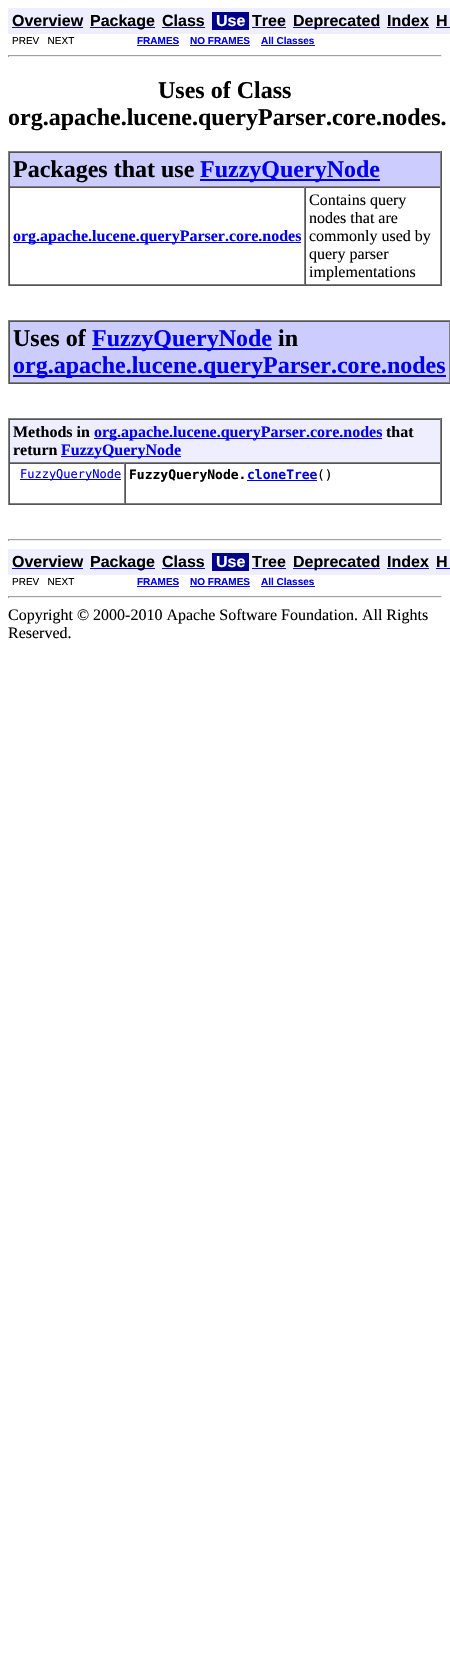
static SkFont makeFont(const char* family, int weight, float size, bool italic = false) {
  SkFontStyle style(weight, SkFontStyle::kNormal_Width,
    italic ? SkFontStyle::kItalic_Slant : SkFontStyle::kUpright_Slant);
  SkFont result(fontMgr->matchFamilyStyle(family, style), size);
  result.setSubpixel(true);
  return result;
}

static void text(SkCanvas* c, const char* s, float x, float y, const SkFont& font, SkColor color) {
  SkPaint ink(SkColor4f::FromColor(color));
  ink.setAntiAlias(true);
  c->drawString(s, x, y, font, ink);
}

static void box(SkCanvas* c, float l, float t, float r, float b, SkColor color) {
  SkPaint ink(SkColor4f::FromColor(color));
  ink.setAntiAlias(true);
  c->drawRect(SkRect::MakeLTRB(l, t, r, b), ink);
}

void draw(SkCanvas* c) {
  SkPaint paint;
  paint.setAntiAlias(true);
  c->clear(0xffffffff);
  box(c, 8, 8, 450, 34, 0xffeeeeff);
  SkFont face1 = makeFont("Liberation Sans", 700, 16);
  text(c, "Overview", 12, 26, face1, 0xff000000);
  box(c, 12, 27, 83, 28, 0xff0000ee);
  box(c, 90, 27, 155, 28, 0xff0000ee);
  text(c, "Package", 90, 26, face1, 0xff000000);
  text(c, "Class", 162, 26, face1, 0xff000000);
  box(c, 162, 27, 205, 28, 0xff0000ee);
  box(c, 212, 12, 249, 30, 0xff00008b);
  text(c, "Use", 216, 26, face1, 0xffffffff);
  text(c, "Tree", 252, 26, face1, 0xff000000);
  box(c, 252, 27, 286, 28, 0xff0000ee);
  box(c, 293, 27, 380, 28, 0xff0000ee);
  text(c, "Deprecated", 293, 26, face1, 0xff000000);
  text(c, "Index", 387, 26, face1, 0xff000000);
  box(c, 387, 27, 429, 28, 0xff0000ee);
  text(c, "H", 436, 26, face1, 0xff000000);
  box(c, 436, 27, 450, 28, 0xff0000ee);
  SkFont face2 = makeFont("Liberation Sans", 400, 10);
  text(c, "PREV   NEXT", 12, 44, face2, 0xff000000);
  SkFont face3 = makeFont("Liberation Sans", 700, 10);
  text(c, "FRAMES", 137, 44, face3, 0xff0000ee);
  box(c, 137, 45, 179, 46, 0xff0000ee);
  text(c, "NO FRAMES", 190, 44, face3, 0xff0000ee);
  box(c, 190, 45, 250, 46, 0xff0000ee);
  text(c, "All Classes", 261, 44, face3, 0xff0000ee);
  box(c, 261, 45, 315, 46, 0xff0000ee);
  box(c, 8, 55, 442, 56, 0xff9f9f9f);
  box(c, 441, 55, 442, 57, 0xffeeeeee);
  box(c, 8, 56, 442, 57, 0xffeeeeee);
  box(c, 8, 55, 9, 57, 0xff9f9f9f);
  SkFont face4 = makeFont("Liberation Serif", 700, 24);
  text(c, "Uses of Class", 158, 98, face4, 0xff000000);
  text(c, "org.apache.lucene.queryParser.core.nodes.", 8, 125, face4, 0xff000000);
  box(c, 8, 151, 442, 152, 0xff808080);
  box(c, 441, 151, 442, 286, 0xff555555);
  box(c, 8, 285, 442, 286, 0xff555555);
  box(c, 8, 151, 9, 286, 0xff808080);
  box(c, 10, 153, 440, 186, 0xffccccff);
  box(c, 9, 152, 441, 153, 0xff555555);
  box(c, 440, 152, 441, 187, 0xff808080);
  box(c, 9, 186, 441, 187, 0xff808080);
  box(c, 9, 152, 10, 187, 0xff555555);
  text(c, "Packages that use", 13, 177, face4, 0xff000000);
  box(c, 200, 179, 380, 181, 0xff0000ee);
  text(c, "FuzzyQueryNode", 200, 177, face4, 0xff0000ee);
  box(c, 9, 187, 441, 188, 0xff555555);
  box(c, 304, 187, 305, 285, 0xff808080);
  box(c, 9, 284, 305, 285, 0xff808080);
  box(c, 9, 187, 10, 285, 0xff555555);
  box(c, 13, 242, 301, 243, 0xff0000ee);
  SkFont face5 = makeFont("Liberation Serif", 700, 16);
  text(c, "org.apache.lucene.queryParser.core.nodes", 13, 241, face5, 0xff0000ee);
  box(c, 440, 187, 441, 285, 0xff808080);
  box(c, 305, 284, 441, 285, 0xff808080);
  box(c, 305, 187, 306, 285, 0xff555555);
  SkFont face6 = makeFont("Liberation Serif", 400, 16);
  text(c, "Contains query", 309, 205, face6, 0xff000000);
  text(c, "nodes that are", 309, 223, face6, 0xff000000);
  text(c, "commonly used by", 309, 241, face6, 0xff000000);
  text(c, "query parser", 309, 259, face6, 0xff000000);
  text(c, "implementations", 309, 277, face6, 0xff000000);
  box(c, 8, 320, 450, 321, 0xff808080);
  box(c, 8, 383, 450, 384, 0xff555555);
  box(c, 8, 320, 9, 384, 0xff808080);
  box(c, 10, 322, 449, 382, 0xffccccff);
  box(c, 9, 321, 450, 322, 0xff555555);
  box(c, 449, 321, 450, 383, 0xff808080);
  box(c, 9, 382, 450, 383, 0xff808080);
  box(c, 9, 321, 10, 383, 0xff555555);
  text(c, "Uses of", 13, 346, face4, 0xff000000);
  box(c, 92, 348, 272, 350, 0xff0000ee);
  text(c, "FuzzyQueryNode", 92, 346, face4, 0xff0000ee);
  text(c, "in", 278, 346, face4, 0xff000000);
  box(c, 13, 375, 446, 377, 0xff0000ee);
  text(c, "org.apache.lucene.queryParser.core.nodes", 13, 373, face4, 0xff0000ee);
  box(c, 8, 418, 442, 419, 0xff808080);
  box(c, 441, 418, 442, 505, 0xff555555);
  box(c, 8, 504, 442, 505, 0xff555555);
  box(c, 8, 418, 9, 505, 0xff808080);
  box(c, 10, 420, 440, 462, 0xffeeeeff);
  box(c, 9, 419, 441, 420, 0xff555555);
  box(c, 440, 419, 441, 463, 0xff808080);
  box(c, 9, 462, 441, 463, 0xff808080);
  box(c, 9, 419, 10, 463, 0xff555555);
  text(c, "Methods in", 13, 437, face5, 0xff000000);
  box(c, 94, 438, 382, 439, 0xff0000ee);
  text(c, "org.apache.lucene.queryParser.core.nodes", 94, 437, face5, 0xff0000ee);
  text(c, "that", 386, 437, face5, 0xff000000);
  text(c, "return", 13, 455, face5, 0xff000000);
  box(c, 61, 456, 181, 457, 0xff0000ee);
  text(c, "FuzzyQueryNode", 61, 455, face5, 0xff0000ee);
  box(c, 9, 463, 441, 464, 0xff555555);
  box(c, 124, 463, 125, 504, 0xff808080);
  box(c, 9, 503, 125, 504, 0xff808080);
  box(c, 9, 463, 10, 504, 0xff555555);
  box(c, 20, 479, 121, 480, 0xff0000ee);
  SkFont face7 = makeFont("DejaVu Sans Mono", 400, 12);
  text(c, "FuzzyQueryNode", 20, 478, face7, 0xff0000ee);
  box(c, 440, 463, 441, 504, 0xff808080);
  box(c, 125, 503, 441, 504, 0xff808080);
  box(c, 125, 463, 126, 504, 0xff555555);
  SkFont face8 = makeFont("DejaVu Sans Mono", 700, 13);
  text(c, "FuzzyQueryNode.", 129, 479, face8, 0xff000000);
  text(c, "cloneTree", 247, 479, face8, 0xff0000ee);
  box(c, 247, 480, 317, 481, 0xff0000ee);
  SkFont face9 = makeFont("DejaVu Sans Mono", 400, 13);
  text(c, "()", 317, 479, face9, 0xff000000);
  box(c, 8, 539, 442, 540, 0xff9f9f9f);
  box(c, 441, 539, 442, 541, 0xffeeeeee);
  box(c, 8, 540, 442, 541, 0xffeeeeee);
  box(c, 8, 539, 9, 541, 0xff9f9f9f);
  box(c, 8, 549, 450, 575, 0xffeeeeff);
  text(c, "Overview", 12, 567, face1, 0xff000000);
  box(c, 12, 568, 83, 569, 0xff0000ee);
  box(c, 90, 568, 155, 569, 0xff0000ee);
  text(c, "Package", 90, 567, face1, 0xff000000);
  text(c, "Class", 162, 567, face1, 0xff000000);
  box(c, 162, 568, 205, 569, 0xff0000ee);
  box(c, 212, 553, 249, 571, 0xff00008b);
  text(c, "Use", 216, 567, face1, 0xffffffff);
  text(c, "Tree", 252, 567, face1, 0xff000000);
  box(c, 252, 568, 286, 569, 0xff0000ee);
  box(c, 293, 568, 380, 569, 0xff0000ee);
  text(c, "Deprecated", 293, 567, face1, 0xff000000);
  text(c, "Index", 387, 567, face1, 0xff000000);
  box(c, 387, 568, 429, 569, 0xff0000ee);
  text(c, "H", 436, 567, face1, 0xff000000);
  box(c, 436, 568, 450, 569, 0xff0000ee);
  text(c, "PREV   NEXT", 12, 585, face2, 0xff000000);
  text(c, "FRAMES", 137, 585, face3, 0xff0000ee);
  box(c, 137, 586, 179, 587, 0xff0000ee);
  text(c, "NO FRAMES", 190, 585, face3, 0xff0000ee);
  box(c, 190, 586, 250, 587, 0xff0000ee);
  text(c, "All Classes", 261, 585, face3, 0xff0000ee);
  box(c, 261, 586, 315, 587, 0xff0000ee);
  box(c, 8, 596, 442, 597, 0xff9f9f9f);
  box(c, 441, 596, 442, 598, 0xffeeeeee);
  box(c, 8, 597, 442, 598, 0xffeeeeee);
  box(c, 8, 596, 9, 598, 0xff9f9f9f);
  text(c, "Copyright © 2000-2010 Apache Software Foundation. All Rights", 8, 620, face6, 0xff000000);
  text(c, "Reserved.", 8, 638, face6, 0xff000000);
}
